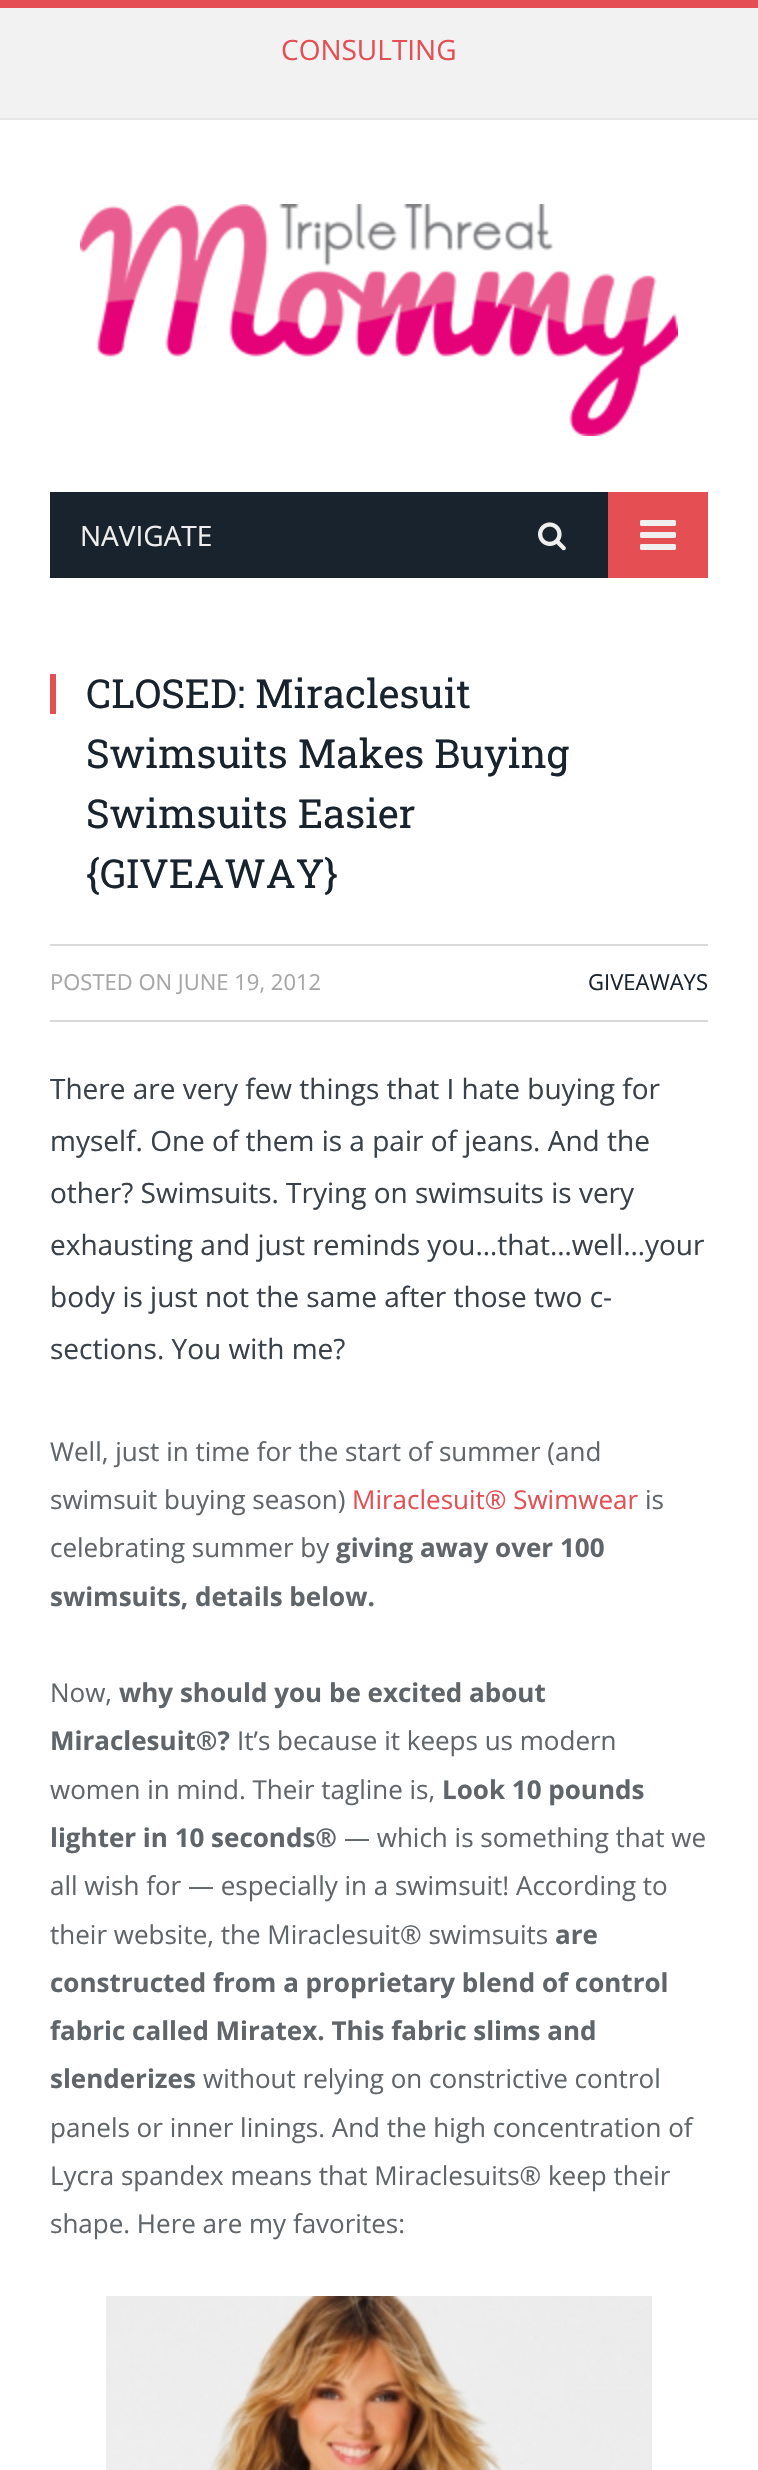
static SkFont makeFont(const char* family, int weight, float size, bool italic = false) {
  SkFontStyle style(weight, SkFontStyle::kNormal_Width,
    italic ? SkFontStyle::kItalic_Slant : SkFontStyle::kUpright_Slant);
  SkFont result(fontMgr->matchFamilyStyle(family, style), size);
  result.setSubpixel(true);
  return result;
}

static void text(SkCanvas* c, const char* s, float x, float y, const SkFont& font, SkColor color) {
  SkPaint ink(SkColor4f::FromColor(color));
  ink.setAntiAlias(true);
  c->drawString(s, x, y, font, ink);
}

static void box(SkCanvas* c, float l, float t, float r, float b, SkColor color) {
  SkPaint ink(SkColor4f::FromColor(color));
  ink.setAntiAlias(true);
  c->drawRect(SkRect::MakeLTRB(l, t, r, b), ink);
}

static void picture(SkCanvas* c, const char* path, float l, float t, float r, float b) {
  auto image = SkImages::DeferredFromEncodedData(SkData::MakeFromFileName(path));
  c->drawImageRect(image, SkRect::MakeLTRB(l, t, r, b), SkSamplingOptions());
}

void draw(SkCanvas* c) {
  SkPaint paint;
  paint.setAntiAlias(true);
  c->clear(0xffffffff);
  box(c, 0, 8, 758, 118, 0xfff2f2f2);
  box(c, 0, 0, 758, 8, 0xffe54e53);
  box(c, 0, 118, 758, 120, 0xffe7e7e7);
  SkFont face1 = makeFont("Open Sans", 400, 28);
  text(c, "CONSULTING", 281, 60, face1, 0xffe54e53);
  picture(c, "img_01.png", 80, 204, 678, 436);
  box(c, 50, 492, 608, 578, 0xff19232d);
  text(c, "NAVIGATE", 80, 546, face1, 0xffefefef);
  picture(c, "img_02.png", 538, 522, 566, 551);
  box(c, 608, 492, 708, 578, 0xffe54e53);
  picture(c, "img_03.png", 640, 520, 676, 550);
  box(c, 50, 674, 56, 714, 0xffe54e53);
  SkFont face2 = makeFont("Roboto Slab", 400, 40);
  text(c, "CLOSED: Miraclesuit", 86, 708, face2, 0xff19232d);
  text(c, "Swimsuits Makes Buying", 86, 768, face2, 0xff19232d);
  text(c, "Swimsuits Easier", 86, 828, face2, 0xff19232d);
  text(c, "{GIVEAWAY}", 86, 888, face2, 0xff19232d);
  box(c, 50, 944, 708, 946, 0xffd9d9d9);
  box(c, 50, 1020, 708, 1022, 0xffd9d9d9);
  SkFont face3 = makeFont("Open Sans", 400, 22);
  text(c, "POSTED ON JUNE 19, 2012", 50, 990, face3, 0xffa6a6a6);
  text(c, "GIVEAWAYS", 588, 990, face3, 0xff19232d);
  text(c, "There are very few things that I hate buying for", 50, 1099, face1, 0xff3a4149);
  text(c, "myself. One of them is a pair of jeans. And the", 50, 1151, face1, 0xff3a4149);
  text(c, "other? Swimsuits. Trying on swimsuits is very", 50, 1203, face1, 0xff3a4149);
  text(c, "exhausting and just reminds you…that…well…your", 50, 1255, face1, 0xff3a4149);
  text(c, "body is just not the same after those two c-", 50, 1307, face1, 0xff3a4149);
  text(c, "sections. You with me?", 50, 1359, face1, 0xff3a4149);
  SkFont face4 = makeFont("Open Sans", 400, 26);
  text(c, "Well, just in time for the start of summer (and", 50, 1461, face4, 0xff606569);
  text(c, "swimsuit buying season)", 50, 1509, face4, 0xff606569);
  text(c, "Miraclesuit® Swimwear", 352, 1509, face4, 0xffe54e53);
  text(c, "is", 645, 1509, face4, 0xff606569);
  text(c, "celebrating summer by", 50, 1557, face4, 0xff606569);
  SkFont face5 = makeFont("Open Sans", 700, 26);
  text(c, "giving away over 100", 336, 1557, face5, 0xff606569);
  text(c, "swimsuits, details below.", 50, 1606, face5, 0xff606569);
  text(c, "Now,", 50, 1702, face4, 0xff606569);
  text(c, "why should you be excited about", 119, 1702, face5, 0xff606569);
  text(c, "Miraclesuit®?", 50, 1750, face5, 0xff606569);
  text(c, "It’s because it keeps us modern", 237, 1750, face4, 0xff606569);
  text(c, "women in mind. Their tagline is,", 50, 1799, face4, 0xff606569);
  text(c, "Look 10 pounds", 442, 1799, face5, 0xff606569);
  text(c, "lighter in 10 seconds®", 50, 1847, face5, 0xff606569);
  text(c, "— which is something that we", 344, 1847, face4, 0xff606569);
  text(c, "all wish for — especially in a swimsuit! According to", 50, 1895, face4, 0xff606569);
  text(c, "their website, the Miraclesuit® swimsuits", 50, 1944, face4, 0xff606569);
  text(c, "are", 555, 1944, face5, 0xff606569);
  text(c, "constructed from a proprietary blend of control", 50, 1992, face5, 0xff606569);
  text(c, "fabric called Miratex. This fabric slims and", 50, 2040, face5, 0xff606569);
  text(c, "slenderizes", 50, 2088, face5, 0xff606569);
  text(c, "without relying on constrictive control", 203, 2088, face4, 0xff606569);
  text(c, "panels or inner linings. And the high concentration of", 50, 2137, face4, 0xff606569);
  text(c, "Lycra spandex means that Miraclesuits® keep their", 50, 2185, face4, 0xff606569);
  text(c, "shape. Here are my favorites:", 50, 2233, face4, 0xff606569);
  picture(c, "img_04.png", 106, 2296, 652, 2470);
}
